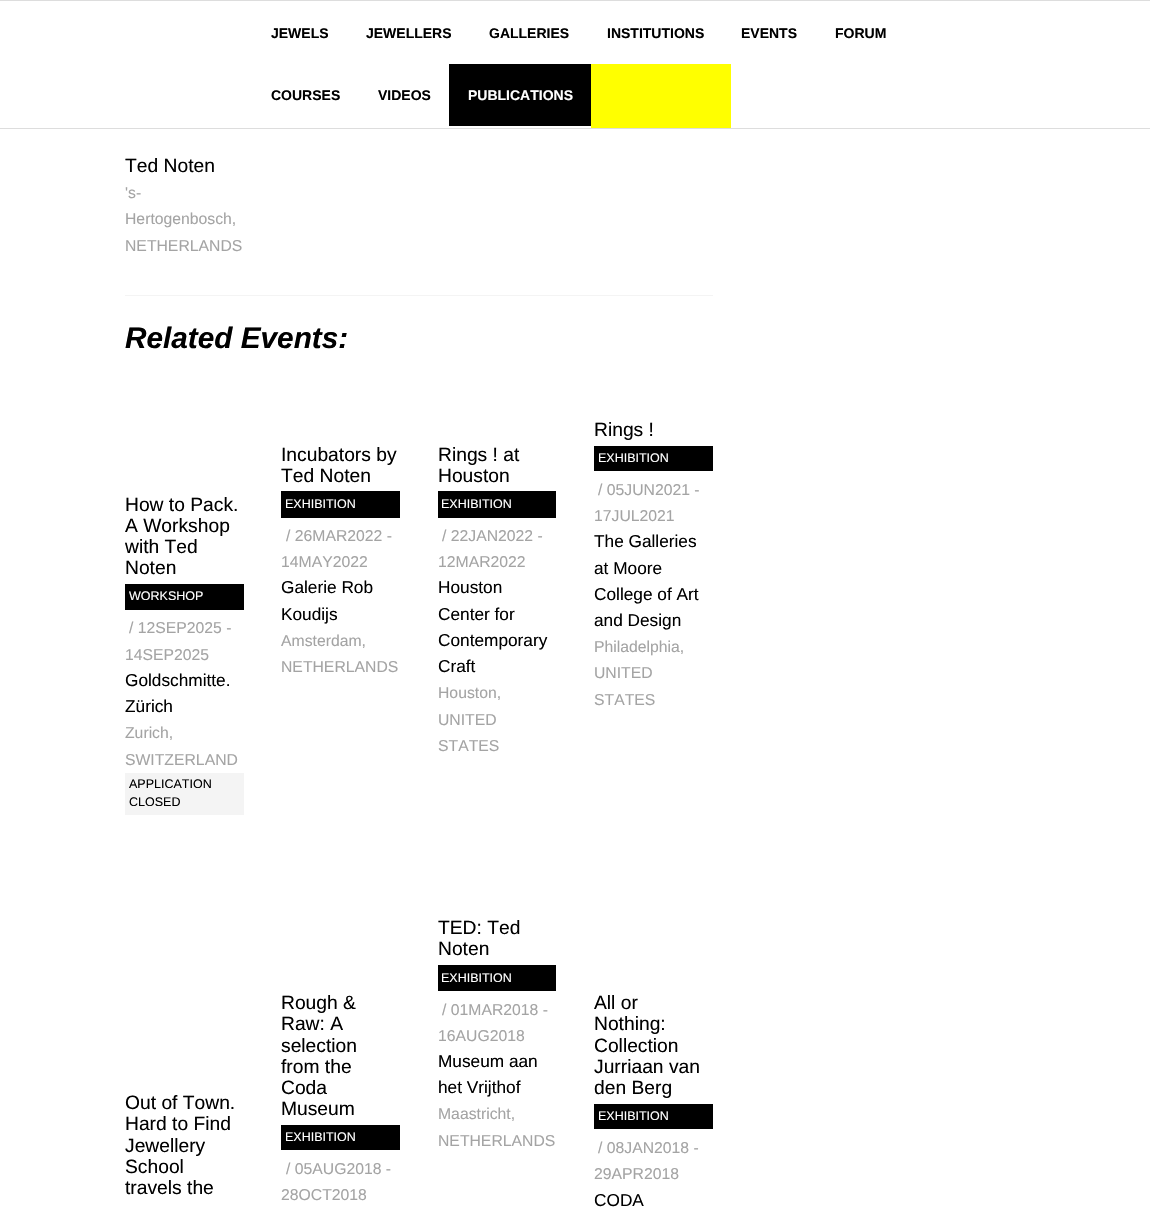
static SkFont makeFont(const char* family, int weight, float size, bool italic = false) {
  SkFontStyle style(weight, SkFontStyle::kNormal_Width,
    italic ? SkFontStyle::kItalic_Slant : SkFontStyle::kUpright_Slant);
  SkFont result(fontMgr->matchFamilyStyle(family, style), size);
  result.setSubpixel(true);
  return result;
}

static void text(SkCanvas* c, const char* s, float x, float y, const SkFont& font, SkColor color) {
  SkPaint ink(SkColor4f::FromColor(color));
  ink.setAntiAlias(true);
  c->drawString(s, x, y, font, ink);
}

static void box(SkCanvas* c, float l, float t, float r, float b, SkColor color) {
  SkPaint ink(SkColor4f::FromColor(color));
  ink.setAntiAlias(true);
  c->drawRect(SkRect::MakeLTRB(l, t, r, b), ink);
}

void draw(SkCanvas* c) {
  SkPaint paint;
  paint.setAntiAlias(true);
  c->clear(0xffffffff);
  box(c, 0, 0, 1150, 1, 0xffdddddd);
  box(c, 0, 128, 1150, 129, 0xffdddddd);
  SkFont face1 = makeFont("Liberation Sans", 700, 14);
  text(c, "JEWELS", 271, 38, face1, 0xff000000);
  text(c, "JEWELLERS", 366, 38, face1, 0xff000000);
  text(c, "GALLERIES", 489, 38, face1, 0xff000000);
  text(c, "INSTITUTIONS", 607, 38, face1, 0xff000000);
  text(c, "EVENTS", 741, 38, face1, 0xff000000);
  text(c, "FORUM", 835, 38, face1, 0xff000000);
  text(c, "COURSES", 271, 100, face1, 0xff000000);
  text(c, "VIDEOS", 378, 100, face1, 0xff000000);
  box(c, 449, 64, 591, 126, 0xff000000);
  text(c, "PUBLICATIONS", 468, 100, face1, 0xffffffff);
  box(c, 591, 64, 731, 128, 0xffffff00);
  SkFont face2 = makeFont("Liberation Sans", 400, 19.25f);
  text(c, "Ted Noten", 125, 172, face2, 0xff000000);
  SkFont face3 = makeFont("Liberation Sans", 400, 15.75f);
  text(c, "'s-", 125, 198, face3, 0xffa4a4a4);
  text(c, "Hertogenbosch,", 125, 224, face3, 0xffa4a4a4);
  text(c, "NETHERLANDS", 125, 251, face3, 0xffa4a4a4);
  box(c, 125, 295, 713, 296, 0xfff4f4f4);
  SkFont face4 = makeFont("Liberation Sans", 700, 29.75f, true);
  text(c, "Related Events:", 125, 348, face4, 0xff000000);
  text(c, "How to Pack.", 125, 511, face2, 0xff000000);
  text(c, "A Workshop", 125, 532, face2, 0xff000000);
  text(c, "with Ted", 125, 553, face2, 0xff000000);
  text(c, "Noten", 125, 574, face2, 0xff000000);
  box(c, 125, 584, 244, 610, 0xff000000);
  SkFont face5 = makeFont("Liberation Sans", 400, 12.5f);
  text(c, "WORKSHOP", 129, 600, face5, 0xffffffff);
  text(c, "/ 12SEP2025 -", 129, 633, face3, 0xffa4a4a4);
  text(c, "14SEP2025", 125, 660, face3, 0xffa4a4a4);
  SkFont face6 = makeFont("Liberation Sans", 400, 17.25f);
  text(c, "Goldschmitte.", 125, 686, face6, 0xff000000);
  text(c, "Zürich", 125, 712, face6, 0xff000000);
  text(c, "Zurich,", 125, 738, face3, 0xffa4a4a4);
  text(c, "SWITZERLAND", 125, 765, face3, 0xffa4a4a4);
  box(c, 125, 773, 244, 815, 0xfff4f4f4);
  text(c, "APPLICATION", 129, 788, face5, 0xff000000);
  text(c, "CLOSED", 129, 806, face5, 0xff000000);
  text(c, "Incubators by", 281, 461, face2, 0xff000000);
  text(c, "Ted Noten", 281, 482, face2, 0xff000000);
  box(c, 281, 491, 400, 518, 0xff000000);
  text(c, "EXHIBITION", 285, 508, face5, 0xffffffff);
  text(c, "/ 26MAR2022 -", 286, 541, face3, 0xffa4a4a4);
  text(c, "14MAY2022", 281, 567, face3, 0xffa4a4a4);
  text(c, "Galerie Rob", 281, 593, face6, 0xff000000);
  text(c, "Koudijs", 281, 620, face6, 0xff000000);
  text(c, "Amsterdam,", 281, 646, face3, 0xffa4a4a4);
  text(c, "NETHERLANDS", 281, 672, face3, 0xffa4a4a4);
  text(c, "Rings ! at", 438, 461, face2, 0xff000000);
  text(c, "Houston", 438, 482, face2, 0xff000000);
  box(c, 438, 491, 556, 518, 0xff000000);
  text(c, "EXHIBITION", 441, 508, face5, 0xffffffff);
  text(c, "/ 22JAN2022 -", 442, 541, face3, 0xffa4a4a4);
  text(c, "12MAR2022", 438, 567, face3, 0xffa4a4a4);
  text(c, "Houston", 438, 593, face6, 0xff000000);
  text(c, "Center for", 438, 620, face6, 0xff000000);
  text(c, "Contemporary", 438, 646, face6, 0xff000000);
  text(c, "Craft", 438, 672, face6, 0xff000000);
  text(c, "Houston,", 438, 698, face3, 0xffa4a4a4);
  text(c, "UNITED", 438, 725, face3, 0xffa4a4a4);
  text(c, "STATES", 438, 751, face3, 0xffa4a4a4);
  text(c, "Rings !", 594, 436, face2, 0xff000000);
  box(c, 594, 446, 713, 471, 0xff000000);
  text(c, "EXHIBITION", 598, 462, face5, 0xffffffff);
  text(c, "/ 05JUN2021 -", 598, 495, face3, 0xffa4a4a4);
  text(c, "17JUL2021", 594, 521, face3, 0xffa4a4a4);
  text(c, "The Galleries", 594, 547, face6, 0xff000000);
  text(c, "at Moore", 594, 574, face6, 0xff000000);
  text(c, "College of Art", 594, 600, face6, 0xff000000);
  text(c, "and Design", 594, 626, face6, 0xff000000);
  text(c, "Philadelphia,", 594, 652, face3, 0xffa4a4a4);
  text(c, "UNITED", 594, 678, face3, 0xffa4a4a4);
  text(c, "STATES", 594, 705, face3, 0xffa4a4a4);
  text(c, "Out of Town.", 125, 1109, face2, 0xff000000);
  text(c, "Hard to Find", 125, 1130, face2, 0xff000000);
  text(c, "Jewellery", 125, 1152, face2, 0xff000000);
  text(c, "School", 125, 1173, face2, 0xff000000);
  text(c, "travels the", 125, 1194, face2, 0xff000000);
  text(c, "Rough &", 281, 1009, face2, 0xff000000);
  text(c, "Raw: A", 281, 1030, face2, 0xff000000);
  text(c, "selection", 281, 1052, face2, 0xff000000);
  text(c, "from the", 281, 1073, face2, 0xff000000);
  text(c, "Coda", 281, 1094, face2, 0xff000000);
  text(c, "Museum", 281, 1115, face2, 0xff000000);
  box(c, 281, 1125, 400, 1150, 0xff000000);
  text(c, "EXHIBITION", 285, 1141, face5, 0xffffffff);
  text(c, "/ 05AUG2018 -", 286, 1174, face3, 0xffa4a4a4);
  text(c, "28OCT2018", 281, 1200, face3, 0xffa4a4a4);
  text(c, "TED: Ted", 438, 934, face2, 0xff000000);
  text(c, "Noten", 438, 955, face2, 0xff000000);
  box(c, 438, 965, 556, 991, 0xff000000);
  text(c, "EXHIBITION", 441, 982, face5, 0xffffffff);
  text(c, "/ 01MAR2018 -", 442, 1015, face3, 0xffa4a4a4);
  text(c, "16AUG2018", 438, 1041, face3, 0xffa4a4a4);
  text(c, "Museum aan", 438, 1067, face6, 0xff000000);
  text(c, "het Vrijthof", 438, 1093, face6, 0xff000000);
  text(c, "Maastricht,", 438, 1119, face3, 0xffa4a4a4);
  text(c, "NETHERLANDS", 438, 1146, face3, 0xffa4a4a4);
  text(c, "All or", 594, 1009, face2, 0xff000000);
  text(c, "Nothing:", 594, 1030, face2, 0xff000000);
  text(c, "Collection", 594, 1052, face2, 0xff000000);
  text(c, "Jurriaan van", 594, 1073, face2, 0xff000000);
  text(c, "den Berg", 594, 1094, face2, 0xff000000);
  box(c, 594, 1104, 713, 1129, 0xff000000);
  text(c, "EXHIBITION", 598, 1120, face5, 0xffffffff);
  text(c, "/ 08JAN2018 -", 598, 1153, face3, 0xffa4a4a4);
  text(c, "29APR2018", 594, 1179, face3, 0xffa4a4a4);
  text(c, "CODA", 594, 1206, face6, 0xff000000);
}
